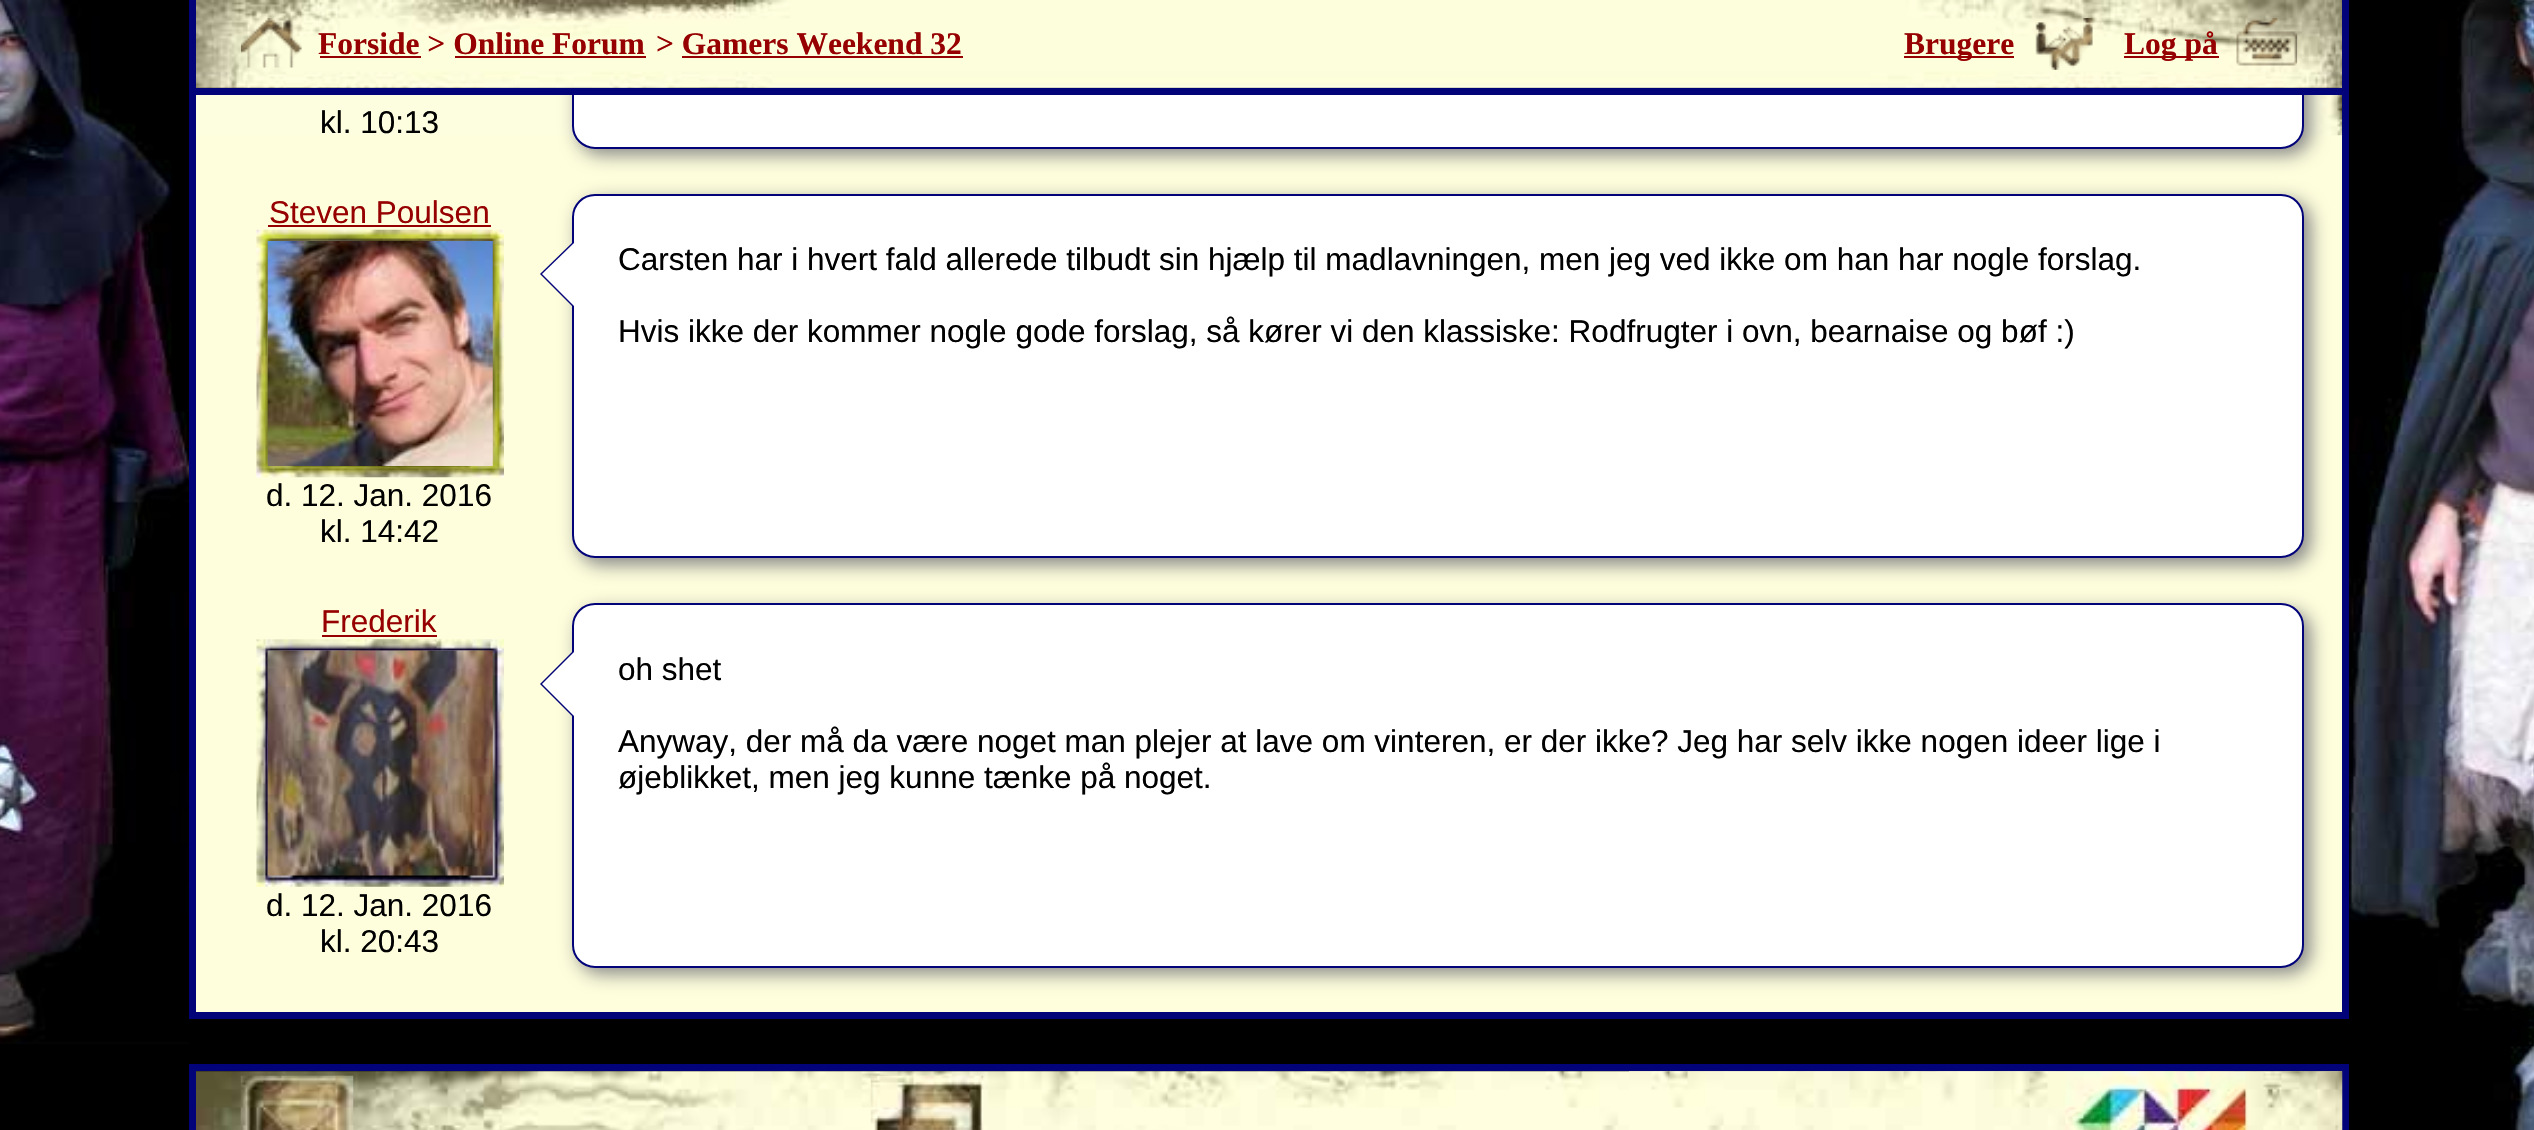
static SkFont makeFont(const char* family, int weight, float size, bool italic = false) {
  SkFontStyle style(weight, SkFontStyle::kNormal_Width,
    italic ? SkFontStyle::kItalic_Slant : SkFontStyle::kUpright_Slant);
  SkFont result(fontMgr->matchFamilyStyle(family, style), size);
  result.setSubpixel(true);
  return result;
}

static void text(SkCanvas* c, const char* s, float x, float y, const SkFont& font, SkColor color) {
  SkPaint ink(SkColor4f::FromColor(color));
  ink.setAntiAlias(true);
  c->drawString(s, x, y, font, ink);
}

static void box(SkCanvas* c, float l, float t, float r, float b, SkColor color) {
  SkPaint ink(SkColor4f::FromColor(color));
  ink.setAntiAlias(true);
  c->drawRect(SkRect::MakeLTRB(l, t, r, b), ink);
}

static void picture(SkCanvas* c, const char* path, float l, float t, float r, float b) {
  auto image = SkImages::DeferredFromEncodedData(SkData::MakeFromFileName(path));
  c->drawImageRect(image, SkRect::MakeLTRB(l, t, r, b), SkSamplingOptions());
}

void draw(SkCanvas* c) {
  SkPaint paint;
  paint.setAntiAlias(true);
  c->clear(0xff000000);
  picture(c, "img_01.png", 0, 0, 189, 1044);
  picture(c, "img_02.png", 2349, 0, 2534, 1130);
  box(c, 196, 135, 2342, 1012, 0xfffefedc);
  picture(c, "img_07.png", 196, 95, 2342, 136);
  paint.setStyle(SkPaint::kStroke_Style);
  paint.setStrokeWidth(7);
  paint.setColor(0xff020379);
  c->drawRect(SkRect::MakeLTRB(192.5f, -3.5f, 2345.5f, 1015.5f), paint);
  paint.setStyle(SkPaint::kFill_Style);
  paint.setColor(0xff888888);
  paint.setMaskFilter(SkMaskFilter::MakeBlur(kNormal_SkBlurStyle, 9));
  c->drawRoundRect(SkRect::MakeLTRB(578, -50, 2311, 155), 23, 23, paint);
  paint.setMaskFilter(nullptr);
  paint.setColor(0xffffffff);
  c->drawRoundRect(SkRect::MakeLTRB(573, -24, 2303, 148), 22, 22, paint);
  paint.setStyle(SkPaint::kStroke_Style);
  paint.setStrokeWidth(2);
  paint.setColor(0xff020379);
  c->drawRoundRect(SkRect::MakeLTRB(573, -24, 2303, 148), 22, 22, paint);
  picture(c, "img_03.png", 196, 0, 2342, 88);
  box(c, 189, 88, 2349, 95, 0xff020379);
  picture(c, "img_04.png", 240, 18, 302, 68);
  SkFont face1 = makeFont("Liberation Serif", 700, 31.5f);
  text(c, "Forside > Online Forum", 318, 54, face1, 0xff960000);
  box(c, 320, 56, 421, 58, 0xff960000);
  text(c, "> Gamers Weekend 32", 656, 54, face1, 0xff960000);
  box(c, 682, 56, 963, 58, 0xff960000);
  box(c, 1904, 56, 2014, 58, 0xff960000);
  text(c, "Brugere", 1904, 54, face1, 0xff960000);
  picture(c, "img_05.png", 2035, 18, 2093, 70);
  box(c, 2124, 56, 2219, 58, 0xff960000);
  text(c, "Log på", 2124, 54, face1, 0xff960000);
  picture(c, "img_06.png", 2236, 18, 2298, 66);
  box(c, 455, 56, 646, 58, 0xff960000);
  SkFont face2 = makeFont("Liberation Sans", 400, 31.5f);
  text(c, "kl. 10:13", 320, 133, face2, 0xff000000);
  text(c, "Steven Poulsen", 269, 223, face2, 0xff960000);
  box(c, 268, 225, 491, 227, 0xff960000);
  picture(c, "img_08.png", 256, 229, 504, 478);
  picture(c, "img_09.png", 267, 241, 493, 466);
  text(c, "d. 12. Jan. 2016", 266, 506, face2, 0xff000000);
  text(c, "kl. 14:42", 320, 542, face2, 0xff000000);
  paint.setStyle(SkPaint::kFill_Style);
  paint.setColor(0xff888888);
  paint.setMaskFilter(SkMaskFilter::MakeBlur(kNormal_SkBlurStyle, 9));
  c->drawRoundRect(SkRect::MakeLTRB(578, 200, 2311, 565), 23, 23, paint);
  paint.setMaskFilter(nullptr);
  paint.setColor(0xffffffff);
  c->drawRoundRect(SkRect::MakeLTRB(573, 195, 2303, 557), 22, 22, paint);
  paint.setStyle(SkPaint::kStroke_Style);
  paint.setColor(0xff020379);
  c->drawRoundRect(SkRect::MakeLTRB(573, 195, 2303, 557), 22, 22, paint);
  paint.setStyle(SkPaint::kFill_Style);
  c->drawPath(SkPathBuilder().moveTo(574, 241).lineTo(574, 308).lineTo(540, 274).close().detach(), paint);
  paint.setColor(0xffffffff);
  c->drawPath(SkPathBuilder().moveTo(574, 243).lineTo(574, 306).lineTo(542, 274).close().detach(), paint);
  text(c, "Carsten har i hvert fald allerede tilbudt sin hjælp til madlavningen, men jeg ved ikke om han har nogle forslag.", 618, 270, face2, 0xff000000);
  text(c, "Hvis ikke der kommer nogle gode forslag, så kører vi den klassiske: Rodfrugter i ovn, bearnaise og bøf :)", 618, 342, face2, 0xff000000);
  text(c, "Frederik", 321, 632, face2, 0xff960000);
  box(c, 322, 635, 437, 637, 0xff960000);
  picture(c, "img_10.png", 256, 639, 504, 887);
  picture(c, "img_11.png", 267, 650, 493, 876);
  text(c, "d. 12. Jan. 2016", 266, 916, face2, 0xff000000);
  text(c, "kl. 20:43", 320, 952, face2, 0xff000000);
  paint.setColor(0xff888888);
  paint.setMaskFilter(SkMaskFilter::MakeBlur(kNormal_SkBlurStyle, 9));
  c->drawRoundRect(SkRect::MakeLTRB(578, 610, 2311, 974), 23, 23, paint);
  paint.setMaskFilter(nullptr);
  paint.setColor(0xffffffff);
  c->drawRoundRect(SkRect::MakeLTRB(573, 604, 2303, 967), 22, 22, paint);
  paint.setStyle(SkPaint::kStroke_Style);
  paint.setColor(0xff020379);
  c->drawRoundRect(SkRect::MakeLTRB(573, 604, 2303, 967), 22, 22, paint);
  paint.setStyle(SkPaint::kFill_Style);
  c->drawPath(SkPathBuilder().moveTo(574, 650).lineTo(574, 718).lineTo(540, 684).close().detach(), paint);
  paint.setColor(0xffffffff);
  c->drawPath(SkPathBuilder().moveTo(574, 652).lineTo(574, 716).lineTo(542, 684).close().detach(), paint);
  text(c, "oh shet", 618, 680, face2, 0xff000000);
  text(c, "Anyway, der må da være noget man plejer at lave om vinteren, er der ikke? Jeg har selv ikke nogen ideer lige i", 618, 752, face2, 0xff000000);
  text(c, "øjeblikket, men jeg kunne tænke på noget.", 618, 788, face2, 0xff000000);
  picture(c, "img_12.png", 196, 1071, 2342, 1130);
  paint.setStyle(SkPaint::kStroke_Style);
  paint.setStrokeWidth(7);
  paint.setColor(0xff020379);
  c->drawRect(SkRect::MakeLTRB(192.5f, 1067.5f, 2345.5f, 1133.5f), paint);
  picture(c, "img_13.png", 240, 1075, 354, 1130);
  picture(c, "img_14.png", 870, 1075, 984, 1130);
  picture(c, "img_15.png", 1629, 1071, 2343, 1130);
}
